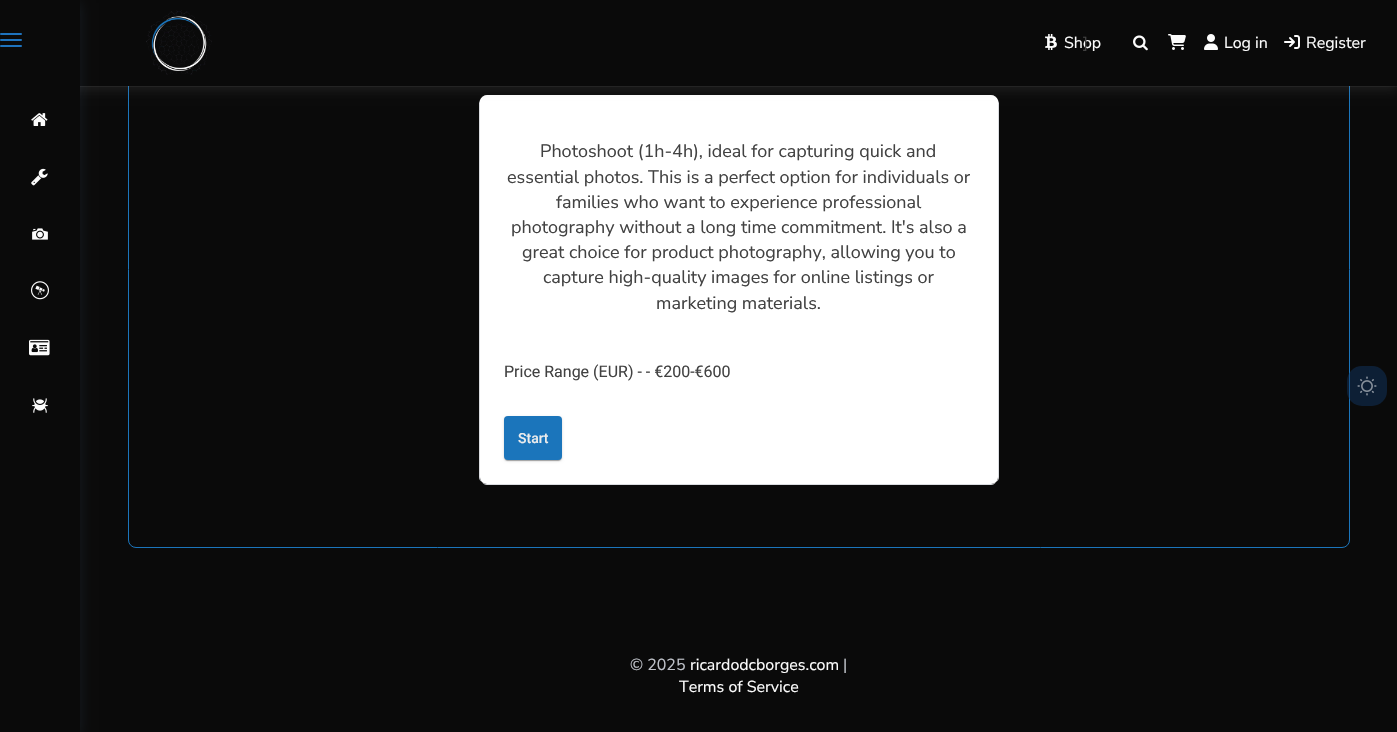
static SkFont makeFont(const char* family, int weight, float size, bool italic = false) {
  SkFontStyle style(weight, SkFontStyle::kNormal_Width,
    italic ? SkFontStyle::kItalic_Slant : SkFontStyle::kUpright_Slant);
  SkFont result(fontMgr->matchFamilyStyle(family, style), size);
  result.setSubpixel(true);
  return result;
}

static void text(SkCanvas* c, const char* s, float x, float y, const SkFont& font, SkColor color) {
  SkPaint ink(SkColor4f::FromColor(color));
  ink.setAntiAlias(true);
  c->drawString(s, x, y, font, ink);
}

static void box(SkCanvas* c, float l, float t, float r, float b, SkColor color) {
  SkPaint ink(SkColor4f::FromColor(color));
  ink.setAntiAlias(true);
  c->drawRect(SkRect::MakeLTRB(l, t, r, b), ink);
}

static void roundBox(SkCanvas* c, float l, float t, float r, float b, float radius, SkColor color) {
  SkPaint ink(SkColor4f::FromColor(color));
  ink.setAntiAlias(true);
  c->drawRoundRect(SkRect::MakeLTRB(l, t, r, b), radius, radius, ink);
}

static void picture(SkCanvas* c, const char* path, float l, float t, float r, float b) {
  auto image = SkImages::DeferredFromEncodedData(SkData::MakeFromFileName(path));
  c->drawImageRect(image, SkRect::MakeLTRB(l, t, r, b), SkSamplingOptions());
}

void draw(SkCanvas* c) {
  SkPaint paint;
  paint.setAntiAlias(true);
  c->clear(0xff0a0a0a);
  paint.setStyle(SkPaint::kStroke_Style);
  paint.setStrokeWidth(1);
  paint.setColor(0xff1b75bb);
  c->drawRoundRect(SkRect::MakeLTRB(128.5f, -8.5f, 1349.5f, 547.5f), 7.5f, 7.5f, paint);
  paint.setStyle(SkPaint::kFill_Style);
  paint.setColor(0xffffffff);
  c->drawPath(SkPathBuilder().moveTo(487, 105).lineTo(998, 105).lineTo(998, 477).cubicTo(998, 481, 995, 484, 991, 484).lineTo(487, 484).cubicTo(483, 484, 480, 481, 480, 477).lineTo(480, 105).close().detach(), paint);
  c->drawPath(SkPathBuilder().moveTo(487, 95).cubicTo(484, 95, 481, 97, 480, 100).lineTo(480, 105).lineTo(998, 105).lineTo(998, 100).cubicTo(997, 97, 994, 95, 991, 95).close().detach(), paint);
  paint.setColor(0xffdadce0);
  c->drawPath(SkPathBuilder().moveTo(999, 477).lineTo(999, 103).lineTo(998, 100).lineTo(998, 105).lineTo(998, 477).cubicTo(998, 479, 997, 481, 996, 482).cubicTo(998, 481, 999, 479, 999, 477).close().detach(), paint);
  c->drawPath(SkPathBuilder().moveTo(479, 103).lineTo(479, 477).cubicTo(479, 479, 480, 481, 482, 482).cubicTo(481, 481, 480, 479, 480, 477).lineTo(480, 105).lineTo(480, 100).close().detach(), paint);
  paint.setColor(0x26848484);
  paint.setMaskFilter(SkMaskFilter::MakeBlur(kNormal_SkBlurStyle, 5));
  c->drawRect(SkRect::MakeLTRB(0, 5, 1397, 91), paint);
  paint.setMaskFilter(nullptr);
  box(c, 80, 86, 1397, 87, 0x0dcecece);
  box(c, 80, 0, 1397, 86, 0xff0a0a0a);
  paint.setColor(0x1a7cb8f8);
  paint.setMaskFilter(SkMaskFilter::MakeBlur(kNormal_SkBlurStyle, 6.5f));
  c->drawRect(SkRect::MakeLTRB(0, 3, 80, 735), paint);
  paint.setMaskFilter(nullptr);
  box(c, 0, 0, 80, 732, 0xff0a0a0a);
  roundBox(c, 0, 33, 22, 35, 1, 0xff1e73be);
  roundBox(c, 0, 39, 22, 41, 1, 0xff1e73be);
  roundBox(c, 0, 45, 22, 47, 1, 0xff1e73be);
  picture(c, "img_01.png", 31, 113, 48, 126);
  picture(c, "img_02.png", 31, 168, 48, 186);
  picture(c, "img_03.png", 32, 228, 48, 240);
  picture(c, "img_04.png", 31, 281, 49, 300);
  picture(c, "img_05.png", 29, 339, 50, 356);
  picture(c, "img_06.png", 32, 398, 48, 413);
  picture(c, "img_07.png", 146, 10, 212, 75);
  picture(c, "img_08.png", 1045, 34, 1057, 50);
  SkFont face1 = makeFont("Nunito Sans", 200, 16);
  text(c, "Shop", 1064, 48, face1, 0xfffcfcfc);
  text(c, "]", 1083, 48, face1, 0xff424242);
  picture(c, "img_09.png", 1133, 35, 1148, 51);
  picture(c, "img_10.png", 1168, 34, 1186, 50);
  picture(c, "img_11.png", 1204, 34, 1218, 50);
  text(c, "Log in", 1224, 48, face1, 0xfffcfcfc);
  picture(c, "img_12.png", 1284, 35, 1300, 49);
  text(c, "Register", 1306, 48, face1, 0xfffcfcfc);
  paint.setColor(0xffdadce0);
  c->drawPath(SkPathBuilder().moveTo(487, 485).lineTo(991, 485).cubicTo(993, 485, 995, 484, 996, 482).cubicTo(995, 483, 993, 484, 991, 484).lineTo(487, 484).cubicTo(485, 484, 483, 483, 482, 482).cubicTo(483, 484, 485, 485, 487, 485).close().detach(), paint);
  SkFont face2 = makeFont("Nunito Sans", 200, 18);
  text(c, "Photoshoot (1h-4h), ideal for capturing quick and", 540, 157, face2, 0xff424242);
  text(c, "essential photos. This is a perfect option for individuals or", 507, 183, face2, 0xff424242);
  text(c, "families who want to experience professional", 556, 208, face2, 0xff424242);
  text(c, "photography without a long time commitment. It's also a", 511, 233, face2, 0xff424242);
  text(c, "great choice for product photography, allowing you to", 522, 258, face2, 0xff424242);
  text(c, "capture high-quality images for online listings or", 543, 283, face2, 0xff424242);
  text(c, "marketing materials.", 656, 309, face2, 0xff424242);
  SkFont face3 = makeFont("Roboto", 400, 16);
  text(c, "Price Range (EUR) - - €200-€600", 504, 377, face3, 0xff424242);
  paint.setColor(0x1f000000);
  paint.setMaskFilter(SkMaskFilter::MakeBlur(kNormal_SkBlurStyle, 1.5f));
  c->drawRoundRect(SkRect::MakeLTRB(504, 417, 562, 461), 4, 4, paint);
  paint.setMaskFilter(nullptr);
  paint.setColor(0x24000000);
  paint.setMaskFilter(SkMaskFilter::MakeBlur(kNormal_SkBlurStyle, 0.5f));
  c->drawRoundRect(SkRect::MakeLTRB(504, 417, 562, 461), 4, 4, paint);
  paint.setMaskFilter(nullptr);
  paint.setColor(0x33000000);
  paint.setMaskFilter(SkMaskFilter::MakeBlur(kNormal_SkBlurStyle, 0.5f));
  c->drawRoundRect(SkRect::MakeLTRB(505, 419, 561, 461), 3, 3, paint);
  paint.setMaskFilter(nullptr);
  roundBox(c, 504, 416, 562, 460, 4, 0xff1b75bb);
  SkFont face4 = makeFont("Roboto", 500, 14);
  text(c, "Start", 518, 443, face4, 0xffededed);
  roundBox(c, 1347, 366, 1387, 406, 15, 0x800f3460);
  picture(c, "img_13.png", 1357, 376, 1377, 396);
  text(c, "© 2025", 630, 670, face1, 0xffbfc2c9);
  text(c, "ricardodcborges.com", 690, 670, face1, 0xfffcfcfc);
  text(c, "|", 843, 670, face1, 0xffbfc2c9);
  text(c, "Terms of Service", 679, 692, face1, 0xfffcfcfc);
}
